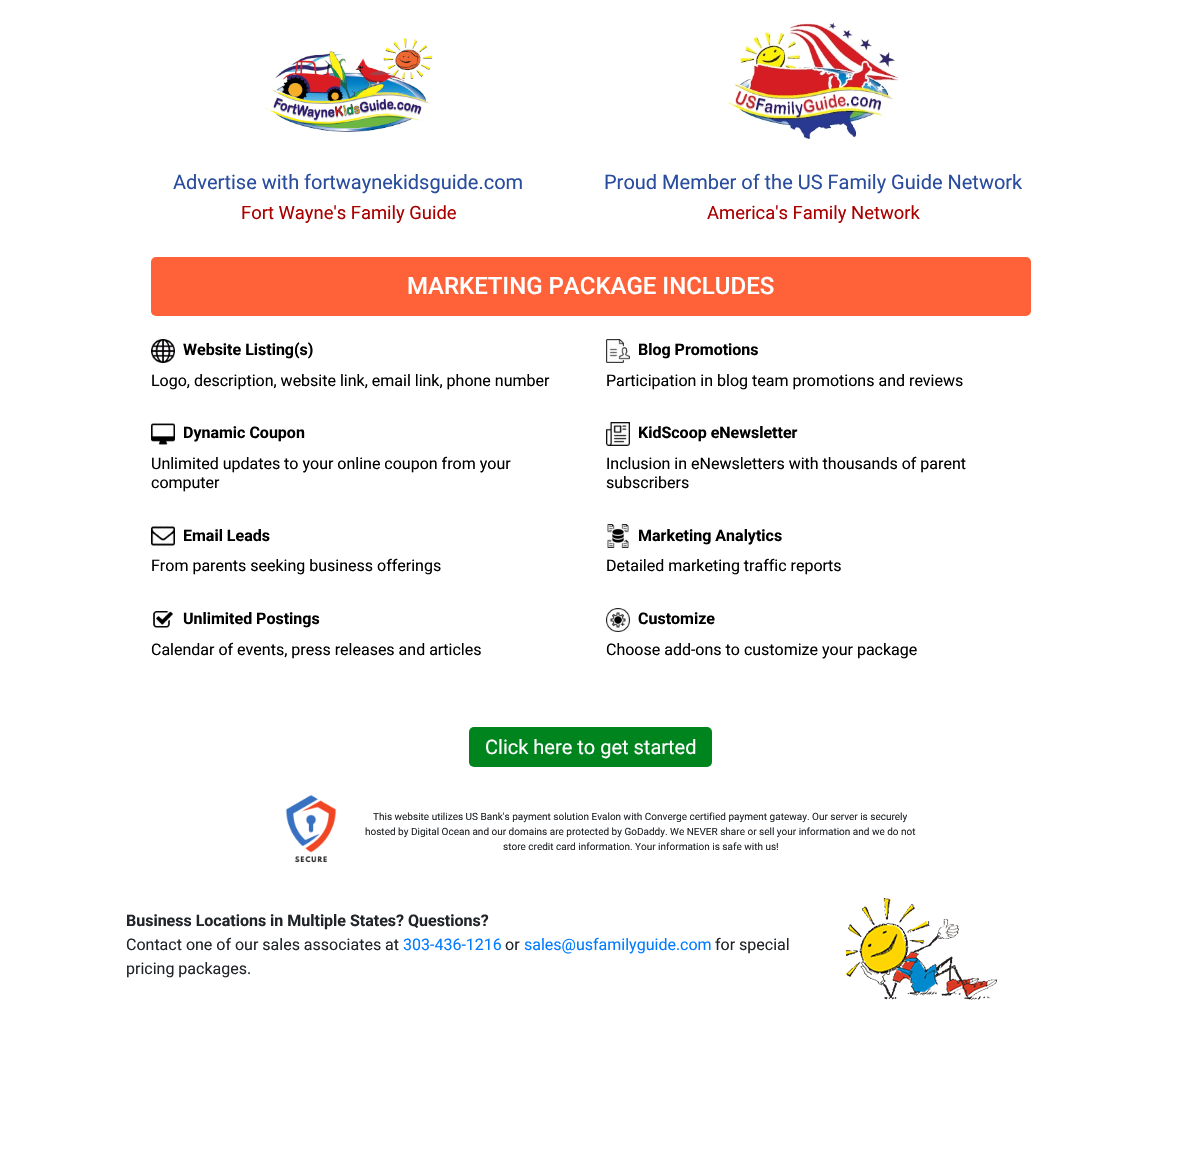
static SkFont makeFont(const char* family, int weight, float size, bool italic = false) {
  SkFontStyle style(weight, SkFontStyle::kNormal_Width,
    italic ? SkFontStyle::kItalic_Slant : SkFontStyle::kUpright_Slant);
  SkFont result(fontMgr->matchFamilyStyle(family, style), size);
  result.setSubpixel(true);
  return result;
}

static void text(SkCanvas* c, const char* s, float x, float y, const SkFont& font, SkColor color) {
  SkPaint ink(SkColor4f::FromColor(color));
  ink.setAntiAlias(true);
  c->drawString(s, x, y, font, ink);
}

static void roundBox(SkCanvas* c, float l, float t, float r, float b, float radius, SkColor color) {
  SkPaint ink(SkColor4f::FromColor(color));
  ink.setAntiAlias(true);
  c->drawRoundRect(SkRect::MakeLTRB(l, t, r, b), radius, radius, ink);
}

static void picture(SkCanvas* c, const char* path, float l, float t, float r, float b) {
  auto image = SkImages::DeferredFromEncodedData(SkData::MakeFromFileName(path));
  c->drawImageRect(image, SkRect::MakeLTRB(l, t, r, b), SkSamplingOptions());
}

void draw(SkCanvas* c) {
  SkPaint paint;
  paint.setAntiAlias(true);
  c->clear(0xffffffff);
  picture(c, "img_01.png", 265, 38, 433, 132);
  SkFont face1 = makeFont("Roboto", 400, 20);
  text(c, "Advertise with fortwaynekidsguide.com", 173, 189, face1, 0xff294c9e);
  SkFont face2 = makeFont("Roboto", 400, 18.4f);
  text(c, "Fort Wayne's Family Guide", 241, 219, face2, 0xffaa0000);
  picture(c, "img_02.png", 728, 23, 898, 139);
  text(c, "Proud Member of the US Family Guide Network", 604, 189, face1, 0xff294c9e);
  text(c, "America's Family Network", 707, 219, face2, 0xffaa0000);
  roundBox(c, 151, 257, 1031, 316, 5, 0xffff6138);
  SkFont face3 = makeFont("Roboto", 500, 24);
  text(c, "MARKETING PACKAGE INCLUDES", 407, 294, face3, 0xffffffff);
  picture(c, "img_03.png", 151, 339, 175, 363);
  SkFont face4 = makeFont("Roboto", 700, 16);
  text(c, "Website Listing(s)", 183, 355, face4, 0xff000000);
  SkFont face5 = makeFont("Roboto", 400, 16);
  text(c, "Logo, description, website link, email link, phone number", 151, 386, face5, 0xff000000);
  picture(c, "img_04.png", 151, 423, 175, 445);
  text(c, "Dynamic Coupon", 183, 438, face4, 0xff000000);
  text(c, "Unlimited updates to your online coupon from your", 151, 469, face5, 0xff000000);
  text(c, "computer", 151, 488, face5, 0xff000000);
  picture(c, "img_05.png", 151, 524, 175, 548);
  text(c, "Email Leads", 183, 541, face4, 0xff000000);
  text(c, "From parents seeking business offerings", 151, 571, face5, 0xff000000);
  picture(c, "img_06.png", 153, 611, 173, 628);
  text(c, "Unlimited Postings", 183, 624, face4, 0xff000000);
  text(c, "Calendar of events, press releases and articles", 151, 655, face5, 0xff000000);
  picture(c, "img_07.png", 606, 339, 630, 363);
  text(c, "Blog Promotions", 638, 355, face4, 0xff000000);
  text(c, "Participation in blog team promotions and reviews", 606, 386, face5, 0xff000000);
  picture(c, "img_08.png", 606, 422, 630, 446);
  text(c, "KidScoop eNewsletter", 638, 438, face4, 0xff000000);
  text(c, "Inclusion in eNewsletters with thousands of parent", 606, 469, face5, 0xff000000);
  text(c, "subscribers", 606, 488, face5, 0xff000000);
  picture(c, "img_09.png", 607, 524, 629, 548);
  text(c, "Marketing Analytics", 638, 541, face4, 0xff000000);
  text(c, "Detailed marketing traffic reports", 606, 571, face5, 0xff000000);
  picture(c, "img_10.png", 606, 608, 630, 632);
  text(c, "Customize", 638, 624, face4, 0xff000000);
  text(c, "Choose add-ons to customize your package", 606, 655, face5, 0xff000000);
  roundBox(c, 469, 727, 712, 767, 5, 0xff00851e);
  text(c, "Click here to get started", 485, 754, face1, 0xffffffff);
  picture(c, "img_11.png", 285, 794, 337, 863);
  SkFont face6 = makeFont("Roboto", 400, 10);
  text(c, "This website utilizes US Bank's payment solution Evalon with Converge certified payment gateway. Our server is securely", 373, 820, face6, 0xff212529);
  text(c, "hosted by Digital Ocean and our domains are protected by GoDaddy. We NEVER share or sell your information and we do not", 365, 835, face6, 0xff212529);
  text(c, "store credit card information. Your information is safe with us!", 503, 850, face6, 0xff212529);
  text(c, "Business Locations in Multiple States? Questions?", 126, 926, face4, 0xff212529);
  text(c, "Contact one of our sales associates at", 126, 950, face5, 0xff212529);
  text(c, "303-436-1216", 403, 950, face5, 0xff007bff);
  text(c, "or", 505, 950, face5, 0xff212529);
  text(c, "sales@usfamilyguide.com", 524, 950, face5, 0xff007bff);
  text(c, "for special", 715, 950, face5, 0xff212529);
  text(c, "pricing packages.", 126, 974, face5, 0xff212529);
  picture(c, "img_12.png", 846, 898, 997, 1000);
}
